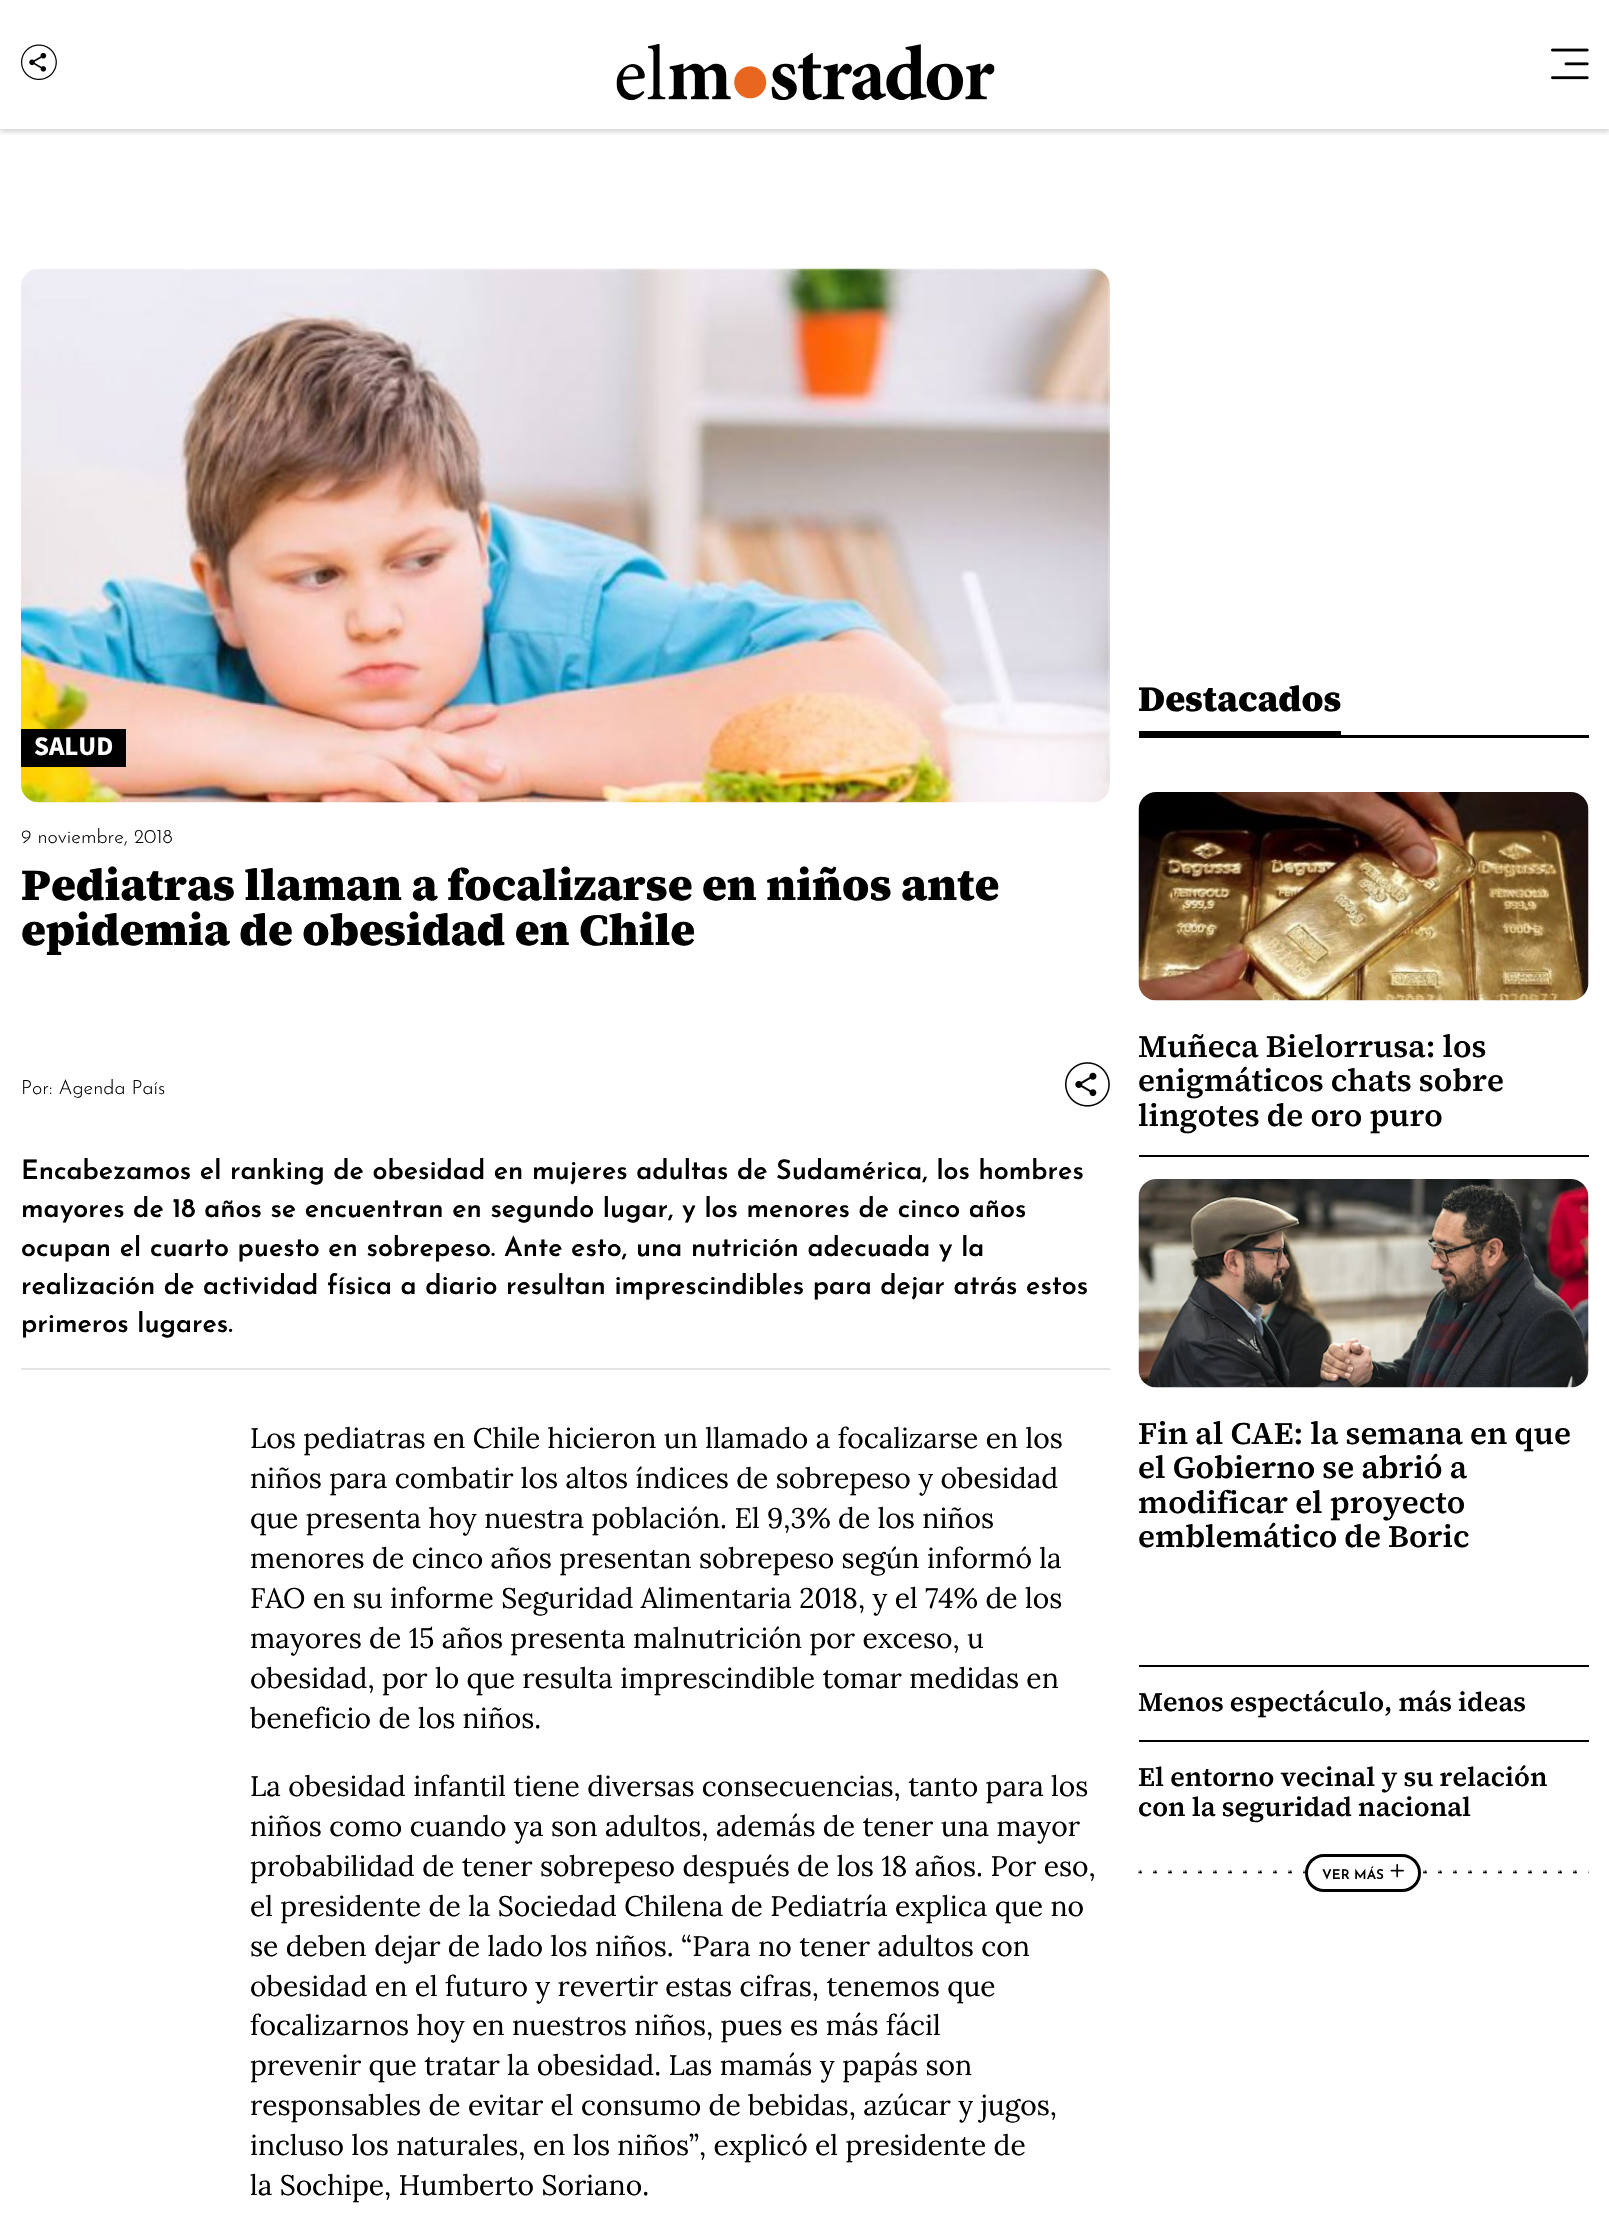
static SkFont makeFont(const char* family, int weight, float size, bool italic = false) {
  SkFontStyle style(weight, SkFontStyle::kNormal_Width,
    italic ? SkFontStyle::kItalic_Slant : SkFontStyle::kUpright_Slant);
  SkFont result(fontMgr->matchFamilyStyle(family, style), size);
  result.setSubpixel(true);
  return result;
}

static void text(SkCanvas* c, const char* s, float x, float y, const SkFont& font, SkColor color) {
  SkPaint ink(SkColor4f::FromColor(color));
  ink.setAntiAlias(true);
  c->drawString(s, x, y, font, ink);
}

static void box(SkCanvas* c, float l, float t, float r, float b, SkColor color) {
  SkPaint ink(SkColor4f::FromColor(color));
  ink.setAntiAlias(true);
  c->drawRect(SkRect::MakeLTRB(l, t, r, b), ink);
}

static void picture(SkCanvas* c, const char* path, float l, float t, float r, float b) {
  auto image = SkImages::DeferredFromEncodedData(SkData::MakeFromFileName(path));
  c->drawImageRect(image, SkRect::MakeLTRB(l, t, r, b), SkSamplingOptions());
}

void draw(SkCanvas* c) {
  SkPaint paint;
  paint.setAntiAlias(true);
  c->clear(0xffffffff);
  c->save();
  c->clipRect(SkRect::MakeLTRB(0, 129, 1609, 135));
  paint.setColor(0x29000000);
  paint.setMaskFilter(SkMaskFilter::MakeBlur(kNormal_SkBlurStyle, 2.5f));
  c->drawRect(SkRect::MakeLTRB(0, 3, 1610, 132), paint);
  paint.setMaskFilter(nullptr);
  c->restore();
  picture(c, "img_01.png", 21, 44, 57, 80);
  picture(c, "img_02.png", 616, 44, 995, 101);
  picture(c, "img_03.png", 1551, 48, 1589, 80);
  picture(c, "img_04.png", 21, 268, 1110, 803);
  box(c, 21, 729, 126, 767, 0xff000000);
  SkFont face1 = makeFont("Source Sans Pro", 700, 26.9f);
  text(c, "SALUD", 34, 755, face1, 0xffffffff);
  SkFont face2 = makeFont("Josefin Sans", 300, 19.75f);
  text(c, "9 noviembre, 2018", 21, 843, face2, 0xff000000);
  SkFont face3 = makeFont("Source Serif 4", 900, 44.8f);
  text(c, "Pediatras llaman a focalizarse en niños ante", 21, 900, face3, 0xff000000);
  text(c, "epidemia de obesidad en Chile", 21, 945, face3, 0xff000000);
  text(c, "Por: Agenda País", 21, 1094, face2, 0xff000000);
  picture(c, "img_05.png", 1065, 1062, 1110, 1107);
  SkFont face4 = makeFont("Josefin Sans", 600, 26.9f);
  text(c, "Encabezamos el ranking de obesidad en mujeres adultas de Sudamérica, los hombres", 21, 1179, face4, 0xff000000);
  text(c, "mayores de 18 años se encuentran en segundo lugar, y los menores de cinco años", 21, 1217, face4, 0xff000000);
  text(c, "ocupan el cuarto puesto en sobrepeso. Ante esto, una nutrición adecuada y la", 21, 1256, face4, 0xff000000);
  text(c, "realización de actividad física a diario resultan imprescindibles para dejar atrás estos", 21, 1294, face4, 0xff000000);
  text(c, "primeros lugares.", 21, 1332, face4, 0xff000000);
  box(c, 21, 1368, 1110, 1370, 0xffe3e3e3);
  SkFont face5 = makeFont("Lora", 400, 28.2f);
  text(c, "Los pediatras en Chile hicieron un llamado a focalizarse en los", 250, 1448, face5, 0xff000000);
  text(c, "niños para combatir los altos índices de sobrepeso y obesidad", 250, 1488, face5, 0xff000000);
  text(c, "que presenta hoy nuestra población. El 9,3% de los niños", 250, 1528, face5, 0xff000000);
  text(c, "menores de cinco años presentan sobrepeso según informó la", 250, 1568, face5, 0xff000000);
  text(c, "FAO en su informe Seguridad Alimentaria 2018, y el 74% de los", 250, 1608, face5, 0xff000000);
  text(c, "mayores de 15 años presenta malnutrición por exceso, u", 250, 1648, face5, 0xff000000);
  text(c, "obesidad, por lo que resulta imprescindible tomar medidas en", 250, 1688, face5, 0xff000000);
  text(c, "beneficio de los niños.", 250, 1728, face5, 0xff000000);
  text(c, "La obesidad infantil tiene diversas consecuencias, tanto para los", 250, 1796, face5, 0xff000000);
  text(c, "niños como cuando ya son adultos, además de tener una mayor", 250, 1836, face5, 0xff000000);
  text(c, "probabilidad de tener sobrepeso después de los 18 años. Por eso,", 250, 1876, face5, 0xff000000);
  text(c, "el presidente de la Sociedad Chilena de Pediatría explica que no", 250, 1916, face5, 0xff000000);
  text(c, "se deben dejar de lado los niños. “Para no tener adultos con", 250, 1956, face5, 0xff000000);
  text(c, "obesidad en el futuro y revertir estas cifras, tenemos que", 250, 1996, face5, 0xff000000);
  text(c, "focalizarnos hoy en nuestros niños, pues es más fácil", 250, 2035, face5, 0xff000000);
  text(c, "prevenir que tratar la obesidad. Las mamás y papás son", 250, 2075, face5, 0xff000000);
  text(c, "responsables de evitar el consumo de bebidas, azúcar y jugos,", 250, 2115, face5, 0xff000000);
  text(c, "incluso los naturales, en los niños”, explicó el presidente de", 250, 2155, face5, 0xff000000);
  text(c, "la Sochipe, Humberto Soriano.", 250, 2195, face5, 0xff000000);
  box(c, 1139, 735, 1589, 738, 0xff000000);
  box(c, 1139, 731, 1341, 735, 0xff000000);
  SkFont face6 = makeFont("Source Serif 4", 900, 36);
  text(c, "Destacados", 1138, 711, face6, 0xff000000);
  picture(c, "img_06.png", 1138, 792, 1589, 1001);
  SkFont face7 = makeFont("Source Serif 4", 600, 31.4f);
  text(c, "Muñeca Bielorrusa: los", 1138, 1057, face7, 0xff000000);
  text(c, "enigmáticos chats sobre", 1138, 1091, face7, 0xff000000);
  text(c, "lingotes de oro puro", 1138, 1126, face7, 0xff000000);
  box(c, 1139, 1155, 1589, 1157, 0xff000000);
  picture(c, "img_07.png", 1138, 1179, 1589, 1388);
  text(c, "Fin al CAE: la semana en que", 1138, 1444, face7, 0xff000000);
  text(c, "el Gobierno se abrió a", 1138, 1478, face7, 0xff000000);
  text(c, "modificar el proyecto", 1138, 1513, face7, 0xff000000);
  text(c, "emblemático de Boric", 1138, 1547, face7, 0xff000000);
  box(c, 1139, 1665, 1589, 1667, 0xff000000);
  SkFont face8 = makeFont("Source Serif 4", 600, 26.9f);
  text(c, "Menos espectáculo, más ideas", 1138, 1711, face8, 0xff000000);
  box(c, 1139, 1740, 1589, 1742, 0xff000000);
  text(c, "El entorno vecinal y su relación", 1138, 1786, face8, 0xff000000);
  text(c, "con la seguridad nacional", 1138, 1816, face8, 0xff000000);
  picture(c, "img_09.png", 1138, 1870, 1589, 1874);
  paint.setColor(0xffffffff);
  c->drawRoundRect(SkRect::MakeLTRB(1306.5f, 1855.5f, 1419.5f, 1890.5f), 17.5f, 17.5f, paint);
  paint.setStyle(SkPaint::kStroke_Style);
  paint.setStrokeWidth(3);
  paint.setColor(0xff000000);
  c->drawRoundRect(SkRect::MakeLTRB(1306.5f, 1855.5f, 1419.5f, 1890.5f), 17.5f, 17.5f, paint);
  SkFont face9 = makeFont("Josefin Sans", 600, 13.5f);
  text(c, "VER MÁS", 1322, 1879, face9, 0xff000000);
  picture(c, "img_08.png", 1390, 1863, 1404, 1878);
}
